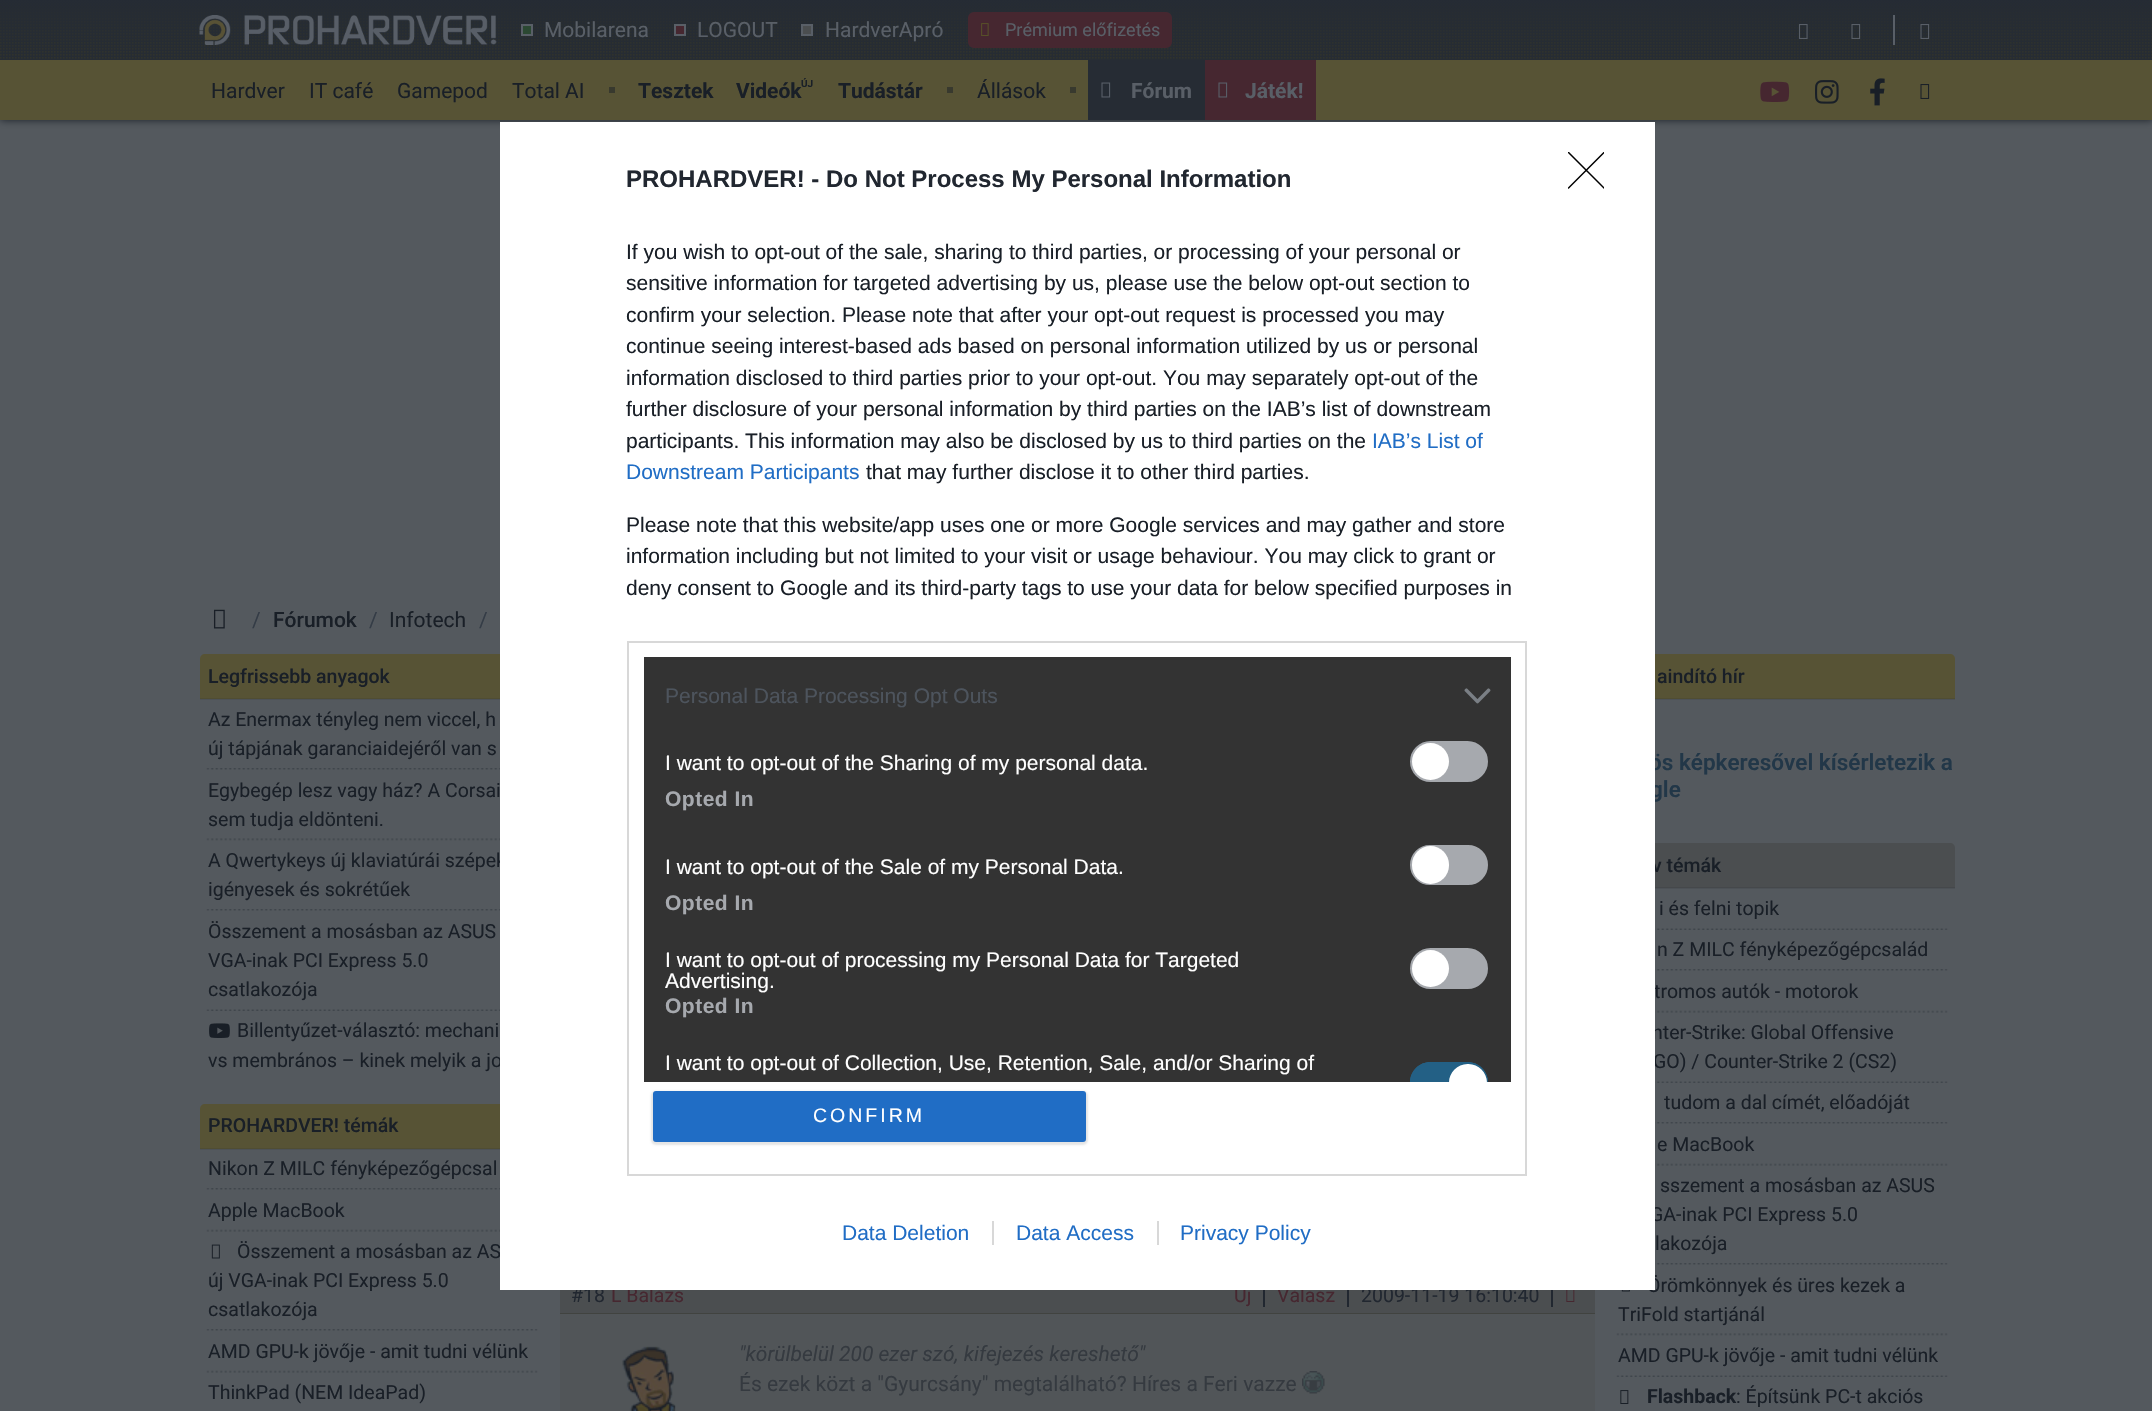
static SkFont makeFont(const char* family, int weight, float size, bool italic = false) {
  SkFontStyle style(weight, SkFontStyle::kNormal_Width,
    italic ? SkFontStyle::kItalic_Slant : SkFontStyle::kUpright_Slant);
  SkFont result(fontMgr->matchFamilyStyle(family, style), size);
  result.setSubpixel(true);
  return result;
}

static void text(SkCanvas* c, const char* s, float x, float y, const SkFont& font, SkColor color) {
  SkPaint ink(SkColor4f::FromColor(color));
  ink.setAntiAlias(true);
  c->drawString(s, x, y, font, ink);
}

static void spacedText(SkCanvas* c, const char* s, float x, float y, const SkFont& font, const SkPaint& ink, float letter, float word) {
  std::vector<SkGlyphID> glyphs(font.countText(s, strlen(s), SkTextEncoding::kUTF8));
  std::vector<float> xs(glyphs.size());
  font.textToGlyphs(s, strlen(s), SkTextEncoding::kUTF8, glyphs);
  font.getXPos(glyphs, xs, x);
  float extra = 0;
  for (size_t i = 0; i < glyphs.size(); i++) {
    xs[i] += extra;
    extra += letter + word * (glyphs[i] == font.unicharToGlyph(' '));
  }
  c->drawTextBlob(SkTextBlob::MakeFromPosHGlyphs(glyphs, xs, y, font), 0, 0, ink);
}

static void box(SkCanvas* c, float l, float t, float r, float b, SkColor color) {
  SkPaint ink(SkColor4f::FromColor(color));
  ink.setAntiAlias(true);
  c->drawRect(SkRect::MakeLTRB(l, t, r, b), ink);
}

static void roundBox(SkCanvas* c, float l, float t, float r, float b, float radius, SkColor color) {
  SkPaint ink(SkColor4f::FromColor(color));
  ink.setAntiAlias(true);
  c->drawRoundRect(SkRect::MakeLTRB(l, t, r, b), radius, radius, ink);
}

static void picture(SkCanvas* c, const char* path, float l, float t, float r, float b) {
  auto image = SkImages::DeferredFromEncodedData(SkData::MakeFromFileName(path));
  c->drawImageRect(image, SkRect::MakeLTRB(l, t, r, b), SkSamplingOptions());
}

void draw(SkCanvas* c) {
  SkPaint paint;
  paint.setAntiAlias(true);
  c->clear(0xff54595e);
  paint.setColor(0xff191f27);
  paint.setMaskFilter(SkMaskFilter::MakeBlur(kNormal_SkBlurStyle, 4));
  c->drawRect(SkRect::MakeLTRB(0, 60, 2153, 120), paint);
  paint.setMaskFilter(nullptr);
  picture(c, "img_01.png", 0, 0, 2152, 60);
  picture(c, "img_02.png", 199, 15, 497, 45);
  paint.setColor(0xff2b4832);
  c->drawRect(SkRect::MakeLTRB(522, 25, 532, 35), paint);
  paint.setStyle(SkPaint::kStroke_Style);
  paint.setStrokeWidth(2);
  paint.setColor(0xff595f67);
  c->drawRect(SkRect::MakeLTRB(522, 25, 532, 35), paint);
  SkFont face1 = makeFont("Roboto", 400, 21);
  text(c, "Mobilarena", 544, 37, face1, 0xff595f67);
  paint.setStyle(SkPaint::kFill_Style);
  paint.setColor(0xff462730);
  c->drawRect(SkRect::MakeLTRB(675, 25, 685, 35), paint);
  paint.setStyle(SkPaint::kStroke_Style);
  paint.setColor(0xff595f67);
  c->drawRect(SkRect::MakeLTRB(675, 25, 685, 35), paint);
  text(c, "LOGOUT", 697, 37, face1, 0xff595f67);
  paint.setStyle(SkPaint::kFill_Style);
  paint.setColor(0xff4b4e50);
  c->drawRect(SkRect::MakeLTRB(802, 25, 812, 35), paint);
  paint.setStyle(SkPaint::kStroke_Style);
  paint.setColor(0xff595f67);
  c->drawRect(SkRect::MakeLTRB(802, 25, 812, 35), paint);
  text(c, "HardverApró", 825, 37, face1, 0xff595f67);
  paint.setStyle(SkPaint::kFill_Style);
  paint.setColor(0xff462730);
  c->drawRoundRect(SkRect::MakeLTRB(969, 13, 1171, 47), 5, 5, paint);
  paint.setStyle(SkPaint::kStroke_Style);
  c->drawRoundRect(SkRect::MakeLTRB(969, 13, 1171, 47), 5, 5, paint);
  picture(c, "img_03.png", 981, 23, 989, 36);
  SkFont face2 = makeFont("Roboto", 400, 18);
  text(c, "Prémium előfizetés", 1005, 36, face2, 0xff595f67);
  picture(c, "img_04.png", 1798, 24, 1808, 39);
  picture(c, "img_05.png", 1851, 24, 1861, 39);
  box(c, 1893, 15, 1895, 45, 0xff595f67);
  picture(c, "img_06.png", 1920, 24, 1930, 39);
  box(c, 0, 60, 2152, 120, 0xff575335);
  text(c, "Hardver", 211, 98, face1, 0xff191f27);
  text(c, "IT café", 309, 98, face1, 0xff191f27);
  text(c, "Gamepod", 397, 98, face1, 0xff191f27);
  text(c, "Total AI", 512, 98, face1, 0xff191f27);
  box(c, 609, 87, 615, 93, 0xff38392e);
  SkFont face3 = makeFont("Roboto", 700, 21);
  text(c, "Tesztek", 638, 98, face3, 0xff191f27);
  text(c, "Videók", 736, 98, face3, 0xff191f27);
  SkFont face4 = makeFont("Roboto", 700, 10);
  text(c, "ÚJ", 801, 87, face4, 0xff191f27);
  text(c, "Tudástár", 838, 98, face3, 0xff191f27);
  box(c, 947, 87, 953, 93, 0xff38392e);
  text(c, "Állások", 977, 98, face1, 0xff191f27);
  box(c, 1070, 87, 1076, 93, 0xff38392e);
  box(c, 1088, 60, 1205, 120, 0xff262c34);
  picture(c, "img_07.png", 1101, 82, 1111, 98);
  text(c, "Fórum", 1131, 98, face3, 0xff595f67);
  box(c, 1205, 60, 1316, 120, 0xff462730);
  picture(c, "img_08.png", 1218, 82, 1228, 98);
  text(c, "Játék!", 1245, 98, face3, 0xff595f67);
  picture(c, "img_09.png", 1760, 81, 1790, 102);
  picture(c, "img_10.png", 1815, 80, 1839, 104);
  picture(c, "img_11.png", 1870, 78, 1885, 106);
  picture(c, "img_12.png", 1920, 84, 1930, 99);
  paint.setStyle(SkPaint::kFill_Style);
  paint.setColor(0xff575335);
  c->drawPath(SkPathBuilder().moveTo(205, 654).lineTo(540, 654).cubicTo(543, 654, 545, 656, 545, 659).lineTo(545, 699).lineTo(200, 699).lineTo(200, 659).cubicTo(200, 656, 202, 654, 205, 654).close().detach(), paint);
  SkFont face5 = makeFont("Roboto", 400, 19.5f);
  text(c, "A Qwertykeys új klaviatúrái szépek", 208, 867, face5, 0xff191f27);
  text(c, "vs membrános – kinek melyik a jo", 208, 1067, face5, 0xff191f27);
  c->drawPath(SkPathBuilder().moveTo(205, 1104).lineTo(540, 1104).cubicTo(543, 1104, 545, 1106, 545, 1109).lineTo(545, 1149).lineTo(200, 1149).lineTo(200, 1109).cubicTo(200, 1106, 202, 1104, 205, 1104).close().detach(), paint);
  text(c, "Összement a mosásban az AS", 237, 1258, face5, 0xff191f27);
  box(c, 560, 1290, 1595, 1313, 0xff4b4e50);
  text(c, "#18", 571, 1302, face5, 0xff212730);
  text(c, "L Balázs", 611, 1302, face5, 0xff462730);
  text(c, "Új", 1234, 1302, face5, 0xff462730);
  box(c, 1263, 1284, 1265, 1307, 0xff212730);
  text(c, "Válasz", 1277, 1302, face5, 0xff462730);
  box(c, 1347, 1284, 1349, 1307, 0xff212730);
  text(c, "2009-11-19 16:10:40", 1361, 1302, face5, 0xff212730);
  box(c, 1551, 1284, 1553, 1307, 0xff212730);
  c->drawPath(SkPathBuilder().moveTo(1615, 654).lineTo(1950, 654).cubicTo(1953, 654, 1955, 656, 1955, 659).lineTo(1955, 699).lineTo(1610, 699).lineTo(1610, 659).cubicTo(1610, 656, 1612, 654, 1615, 654).close().detach(), paint);
  SkFont face6 = makeFont("Roboto", 600, 22.5f);
  text(c, "ös képkeresővel kísérletezik a", 1649, 770, face6, 0xff223748);
  text(c, "gle", 1650, 797, face6, 0xff223748);
  paint.setColor(0xff4b4e50);
  c->drawPath(SkPathBuilder().moveTo(1615, 843).lineTo(1950, 843).cubicTo(1953, 843, 1955, 845, 1955, 848).lineTo(1955, 888).lineTo(1610, 888).lineTo(1610, 848).cubicTo(1610, 845, 1612, 843, 1615, 843).close().detach(), paint);
  SkFont face7 = makeFont("Roboto", 500, 19.5f);
  text(c, "v témák", 1652, 872, face7, 0xff191f27);
  text(c, "tromos autók - motorok", 1654, 998, face5, 0xff191f27);
  text(c, "nter-Strike: Global Offensive", 1652, 1039, face5, 0xff191f27);
  text(c, "GO) / Counter-Strike 2 (CS2)", 1653, 1068, face5, 0xff191f27);
  text(c, "GA-inak PCI Express 5.0", 1650, 1221, face5, 0xff191f27);
  text(c, "Örömkönnyek és üres kezek a", 1647, 1292, face5, 0xff191f27);
  box(c, 500, 122, 1655, 1290, 0xffffffff);
  SkFont face8 = makeFont("Liberation Sans", 700, 24);
  text(c, "PROHARDVER! - Do Not Process My Personal Information", 626, 187, face8, 0xff212730);
  SkFont face9 = makeFont("Liberation Sans", 400, 21);
  text(c, "If you wish to opt-out of the sale, sharing to third parties, or processing of your personal or", 626, 259, face9, 0xff191f27);
  text(c, "sensitive information for targeted advertising by us, please use the below opt-out section to", 626, 290, face9, 0xff191f27);
  text(c, "confirm your selection. Please note that after your opt-out request is processed you may", 626, 322, face9, 0xff191f27);
  text(c, "continue seeing interest-based ads based on personal information utilized by us or personal", 626, 353, face9, 0xff191f27);
  text(c, "information disclosed to third parties prior to your opt-out. You may separately opt-out of the", 626, 385, face9, 0xff191f27);
  text(c, "further disclosure of your personal information by third parties on the IAB’s list of downstream", 626, 416, face9, 0xff191f27);
  text(c, "participants. This information may also be disclosed by us to third parties on the", 626, 448, face9, 0xff191f27);
  text(c, "IAB’s List of", 1372, 448, face9, 0xff206dc5);
  text(c, "Downstream Participants", 626, 479, face9, 0xff206dc5);
  text(c, "that may further disclose it to other third parties.", 866, 479, face9, 0xff191f27);
  text(c, "Please note that this website/app uses one or more Google services and may gather and store", 626, 532, face9, 0xff191f27);
  text(c, "information including but not limited to your visit or usage behaviour. You may click to grant or", 626, 563, face9, 0xff191f27);
  text(c, "deny consent to Google and its third-party tags to use your data for below specified purposes in", 626, 595, face9, 0xff191f27);
  paint.setStyle(SkPaint::kStroke_Style);
  paint.setColor(0xffd8d8d8);
  c->drawRect(SkRect::MakeLTRB(628, 642, 1526, 1175), paint);
  box(c, 644, 657, 1511, 1082, 0xff333333);
  text(c, "Personal Data Processing Opt Outs", 665, 703, face9, 0xff4d545d);
  picture(c, "img_13.png", 1464, 688, 1491, 704);
  text(c, "I want to opt-out of the Sharing of my personal data.", 665, 770, face9, 0xffffffff);
  paint.setStyle(SkPaint::kFill_Style);
  paint.setColor(0xffa6a9ae);
  c->drawRoundRect(SkRect::MakeLTRB(1411, 742, 1487, 781), 19.5f, 19.5f, paint);
  paint.setStyle(SkPaint::kStroke_Style);
  c->drawRoundRect(SkRect::MakeLTRB(1411, 742, 1487, 781), 19.5f, 19.5f, paint);
  paint.setStyle(SkPaint::kFill_Style);
  paint.setColor(0xffffffff);
  c->drawCircle(1430.5f, 761.5f, 18.5f, paint);
  SkFont face10 = makeFont("Liberation Sans", 700, 21);
  paint.setColor(0xffa6a9ae);
  spacedText(c, "Opted In", 665, 806, face10, paint, 0.5f, 0);
  text(c, "I want to opt-out of the Sale of my Personal Data.", 665, 874, face9, 0xffffffff);
  c->drawRoundRect(SkRect::MakeLTRB(1411, 846, 1487, 884), 19, 19, paint);
  paint.setStyle(SkPaint::kStroke_Style);
  c->drawRoundRect(SkRect::MakeLTRB(1411, 846, 1487, 884), 19, 19, paint);
  roundBox(c, 1412, 846, 1449, 884, 18.5f, 0xffffffff);
  paint.setStyle(SkPaint::kFill_Style);
  spacedText(c, "Opted In", 665, 910, face10, paint, 0.5f, 0);
  text(c, "I want to opt-out of processing my Personal Data for Targeted", 665, 967, face9, 0xffffffff);
  text(c, "Advertising.", 665, 988, face9, 0xffffffff);
  c->drawRoundRect(SkRect::MakeLTRB(1411, 949, 1487, 988), 19.5f, 19.5f, paint);
  paint.setStyle(SkPaint::kStroke_Style);
  c->drawRoundRect(SkRect::MakeLTRB(1411, 949, 1487, 988), 19.5f, 19.5f, paint);
  paint.setStyle(SkPaint::kFill_Style);
  paint.setColor(0xffffffff);
  c->drawCircle(1430.5f, 968.5f, 18.5f, paint);
  paint.setColor(0xffa6a9ae);
  spacedText(c, "Opted In", 665, 1013, face10, paint, 0.5f, 0);
  text(c, "I want to opt-out of Collection, Use, Retention, Sale, and/or Sharing of", 665, 1070, face9, 0xffffffff);
  paint.setColor(0xff236085);
  c->drawPath(SkPathBuilder().moveTo(1430.5f, 1062).lineTo(1467.5f, 1062).cubicTo(1479, 1062, 1488, 1071, 1488, 1082.5f).lineTo(1488, 1082).lineTo(1410, 1082).lineTo(1410, 1082.5f).cubicTo(1410, 1071, 1419, 1062, 1430.5f, 1062).close().detach(), paint);
  c->save();
  c->clipRect(SkRect::MakeLTRB(644, 657, 1511, 1082));
  paint.setStyle(SkPaint::kStroke_Style);
  c->drawRoundRect(SkRect::MakeLTRB(1411, 1063, 1487, 1102), 19.5f, 19.5f, paint);
  c->restore();
  paint.setStyle(SkPaint::kFill_Style);
  paint.setColor(0xffffffff);
  c->drawPath(SkPathBuilder().moveTo(1467.5f, 1064).lineTo(1468.5f, 1064).cubicTo(1478.5f, 1064, 1487, 1072.5f, 1487, 1082.5f).lineTo(1487, 1082).lineTo(1449, 1082).lineTo(1449, 1082.5f).cubicTo(1449, 1072.5f, 1457.5f, 1064, 1467.5f, 1064).close().detach(), paint);
  paint.setColor(0x1a000000);
  paint.setMaskFilter(SkMaskFilter::MakeBlur(kNormal_SkBlurStyle, 1));
  c->drawRoundRect(SkRect::MakeLTRB(651, 1091, 1088, 1145), 5, 5, paint);
  paint.setMaskFilter(nullptr);
  roundBox(c, 653, 1091, 1086, 1142, 3, 0xff206dc5);
  SkFont face11 = makeFont("Liberation Sans", 400, 19.5f);
  paint.setColor(0xffffffff);
  spacedText(c, "CONFIRM", 813, 1122, face11, paint, 3, 0);
  c->save();
  c->clipRect(SkRect::MakeLTRB(1568, 152, 1604, 189));
  paint.setStyle(SkPaint::kStroke_Style);
  paint.setStrokeWidth(1.5f);
  paint.setStrokeCap(SkPaint::kRound_Cap);
  paint.setStrokeJoin(SkPaint::kRound_Join);
  paint.setColor(0xff000000);
  c->drawPath(SkPathBuilder().moveTo(1568.5f, 152.5f).lineTo(1604, 188).moveTo(1604, 152.5f).lineTo(1568.5f, 188).detach(), paint);
  c->restore();
  text(c, "Data Deletion", 842, 1240, face9, 0xff206dc5);
  text(c, "Data Access", 1016, 1240, face9, 0xff206dc5);
  box(c, 992, 1221, 994, 1245, 0xffd8d8d8);
  text(c, "Privacy Policy", 1180, 1240, face9, 0xff206dc5);
  box(c, 1157, 1221, 1159, 1245, 0xffd8d8d8);
  box(c, 1655, 888, 1955, 889, 0xff4d5257);
  box(c, 1655, 699, 1955, 700, 0xff4d5257);
  box(c, 200, 1149, 500, 1150, 0xff4d5257);
  box(c, 200, 699, 500, 700, 0xff4d5257);
  picture(c, "img_14.png", 213, 609, 225, 629);
  text(c, "/", 252, 627, face1, 0xff343c46);
  SkFont face12 = makeFont("Roboto", 500, 21);
  text(c, "Fórumok", 273, 627, face12, 0xff191f27);
  text(c, "/", 369, 627, face1, 0xff343c46);
  text(c, "Infotech", 389, 627, face1, 0xff191f27);
  text(c, "/", 479, 627, face1, 0xff343c46);
  box(c, 200, 698, 500, 699, 0xff504d33);
  text(c, "Legfrissebb anyagok", 208, 683, face7, 0xff191f27);
  text(c, "Az Enermax tényleg nem viccel, h", 208, 726, face5, 0xff191f27);
  text(c, "új tápjának garanciaidejéről van s", 208, 755, face5, 0xff191f27);
  picture(c, "img_15.png", 206, 768, 500, 770);
  text(c, "Egybegép lesz vagy ház? A Corsai", 208, 797, face5, 0xff191f27);
  text(c, "sem tudja eldönteni.", 208, 826, face5, 0xff191f27);
  picture(c, "img_16.png", 206, 838, 500, 841);
  text(c, "igényesek és sokrétűek", 208, 896, face5, 0xff191f27);
  picture(c, "img_15.png", 206, 909, 500, 911);
  text(c, "Összement a mosásban az ASUS", 208, 938, face5, 0xff191f27);
  text(c, "VGA-inak PCI Express 5.0", 208, 967, face5, 0xff191f27);
  text(c, "csatlakozója", 208, 996, face5, 0xff191f27);
  picture(c, "img_17.png", 206, 1009, 500, 1011);
  picture(c, "img_18.png", 209, 1023, 230, 1038);
  text(c, "Billentyűzet-választó: mechani", 237, 1037, face5, 0xff191f27);
  box(c, 200, 1148, 500, 1149, 0xff504d33);
  text(c, "PROHARDVER! témák", 208, 1132, face7, 0xff191f27);
  text(c, "Nikon Z MILC fényképezőgépcsal", 208, 1175, face5, 0xff191f27);
  picture(c, "img_15.png", 206, 1188, 500, 1190);
  text(c, "Apple MacBook", 208, 1217, face5, 0xff191f27);
  picture(c, "img_19.png", 206, 1229, 500, 1232);
  picture(c, "img_20.png", 211, 1244, 220, 1259);
  text(c, "új VGA-inak PCI Express 5.0", 208, 1287, face5, 0xff191f27);
  text(c, "csatlakozója", 208, 1316, face5, 0xff191f27);
  picture(c, "img_21.png", 206, 1329, 538, 1331);
  text(c, "AMD GPU-k jövője - amit tudni vélünk", 208, 1358, face5, 0xff191f27);
  picture(c, "img_22.png", 206, 1370, 538, 1373);
  text(c, "ThinkPad (NEM IdeaPad)", 208, 1399, face5, 0xff191f27);
  box(c, 560, 1313, 1595, 1314, 0xff414340);
  picture(c, "img_23.png", 1566, 1290, 1575, 1302);
  box(c, 560, 1314, 1595, 1411, 0xff515558);
  picture(c, "img_24.png", 622, 1346, 676, 1411);
  SkFont face13 = makeFont("Roboto", 400, 21, true);
  text(c, "\"körülbelül 200 ezer szó, kifejezés kereshető\"", 739, 1361, face13, 0xff353a40);
  text(c, "És ezek közt a \"Gyurcsány\" megtalálható? Híres a Feri vazze", 739, 1391, face1, 0xff353a40);
  picture(c, "img_25.png", 1302, 1371, 1325, 1394);
  box(c, 1655, 698, 1955, 699, 0xff504d33);
  text(c, "aindító hír", 1657, 683, face7, 0xff191f27);
  box(c, 1655, 887, 1955, 888, 0xff45484b);
  text(c, "i és felni topik", 1659, 915, face5, 0xff191f27);
  picture(c, "img_26.png", 1655, 928, 1948, 930);
  text(c, "n Z MILC fényképezőgépcsalád", 1657, 956, face5, 0xff191f27);
  picture(c, "img_27.png", 1655, 969, 1948, 971);
  picture(c, "img_28.png", 1655, 1010, 1948, 1013);
  picture(c, "img_26.png", 1655, 1081, 1948, 1083);
  text(c, "tudom a dal címét, előadóját", 1664, 1109, face5, 0xff191f27);
  picture(c, "img_27.png", 1655, 1122, 1948, 1124);
  text(c, "e MacBook", 1657, 1151, face5, 0xff191f27);
  picture(c, "img_28.png", 1655, 1163, 1948, 1166);
  text(c, "sszement a mosásban az ASUS", 1660, 1192, face5, 0xff191f27);
  text(c, "lakozója", 1655, 1250, face5, 0xff191f27);
  picture(c, "img_27.png", 1655, 1263, 1948, 1265);
  picture(c, "img_29.png", 1621, 1290, 1630, 1292);
  text(c, "TriFold startjánál", 1618, 1321, face5, 0xff191f27);
  picture(c, "img_30.png", 1616, 1333, 1948, 1336);
  text(c, "AMD GPU-k jövője - amit tudni vélünk", 1618, 1362, face5, 0xff191f27);
  picture(c, "img_31.png", 1616, 1375, 1948, 1377);
  picture(c, "img_32.png", 1620, 1390, 1629, 1404);
  SkFont face14 = makeFont("Roboto", 700, 19.5f);
  text(c, "Flashback", 1647, 1403, face14, 0xff191f27);
  text(c, ": Építsünk PC-t akciós", 1736, 1403, face5, 0xff191f27);
}
